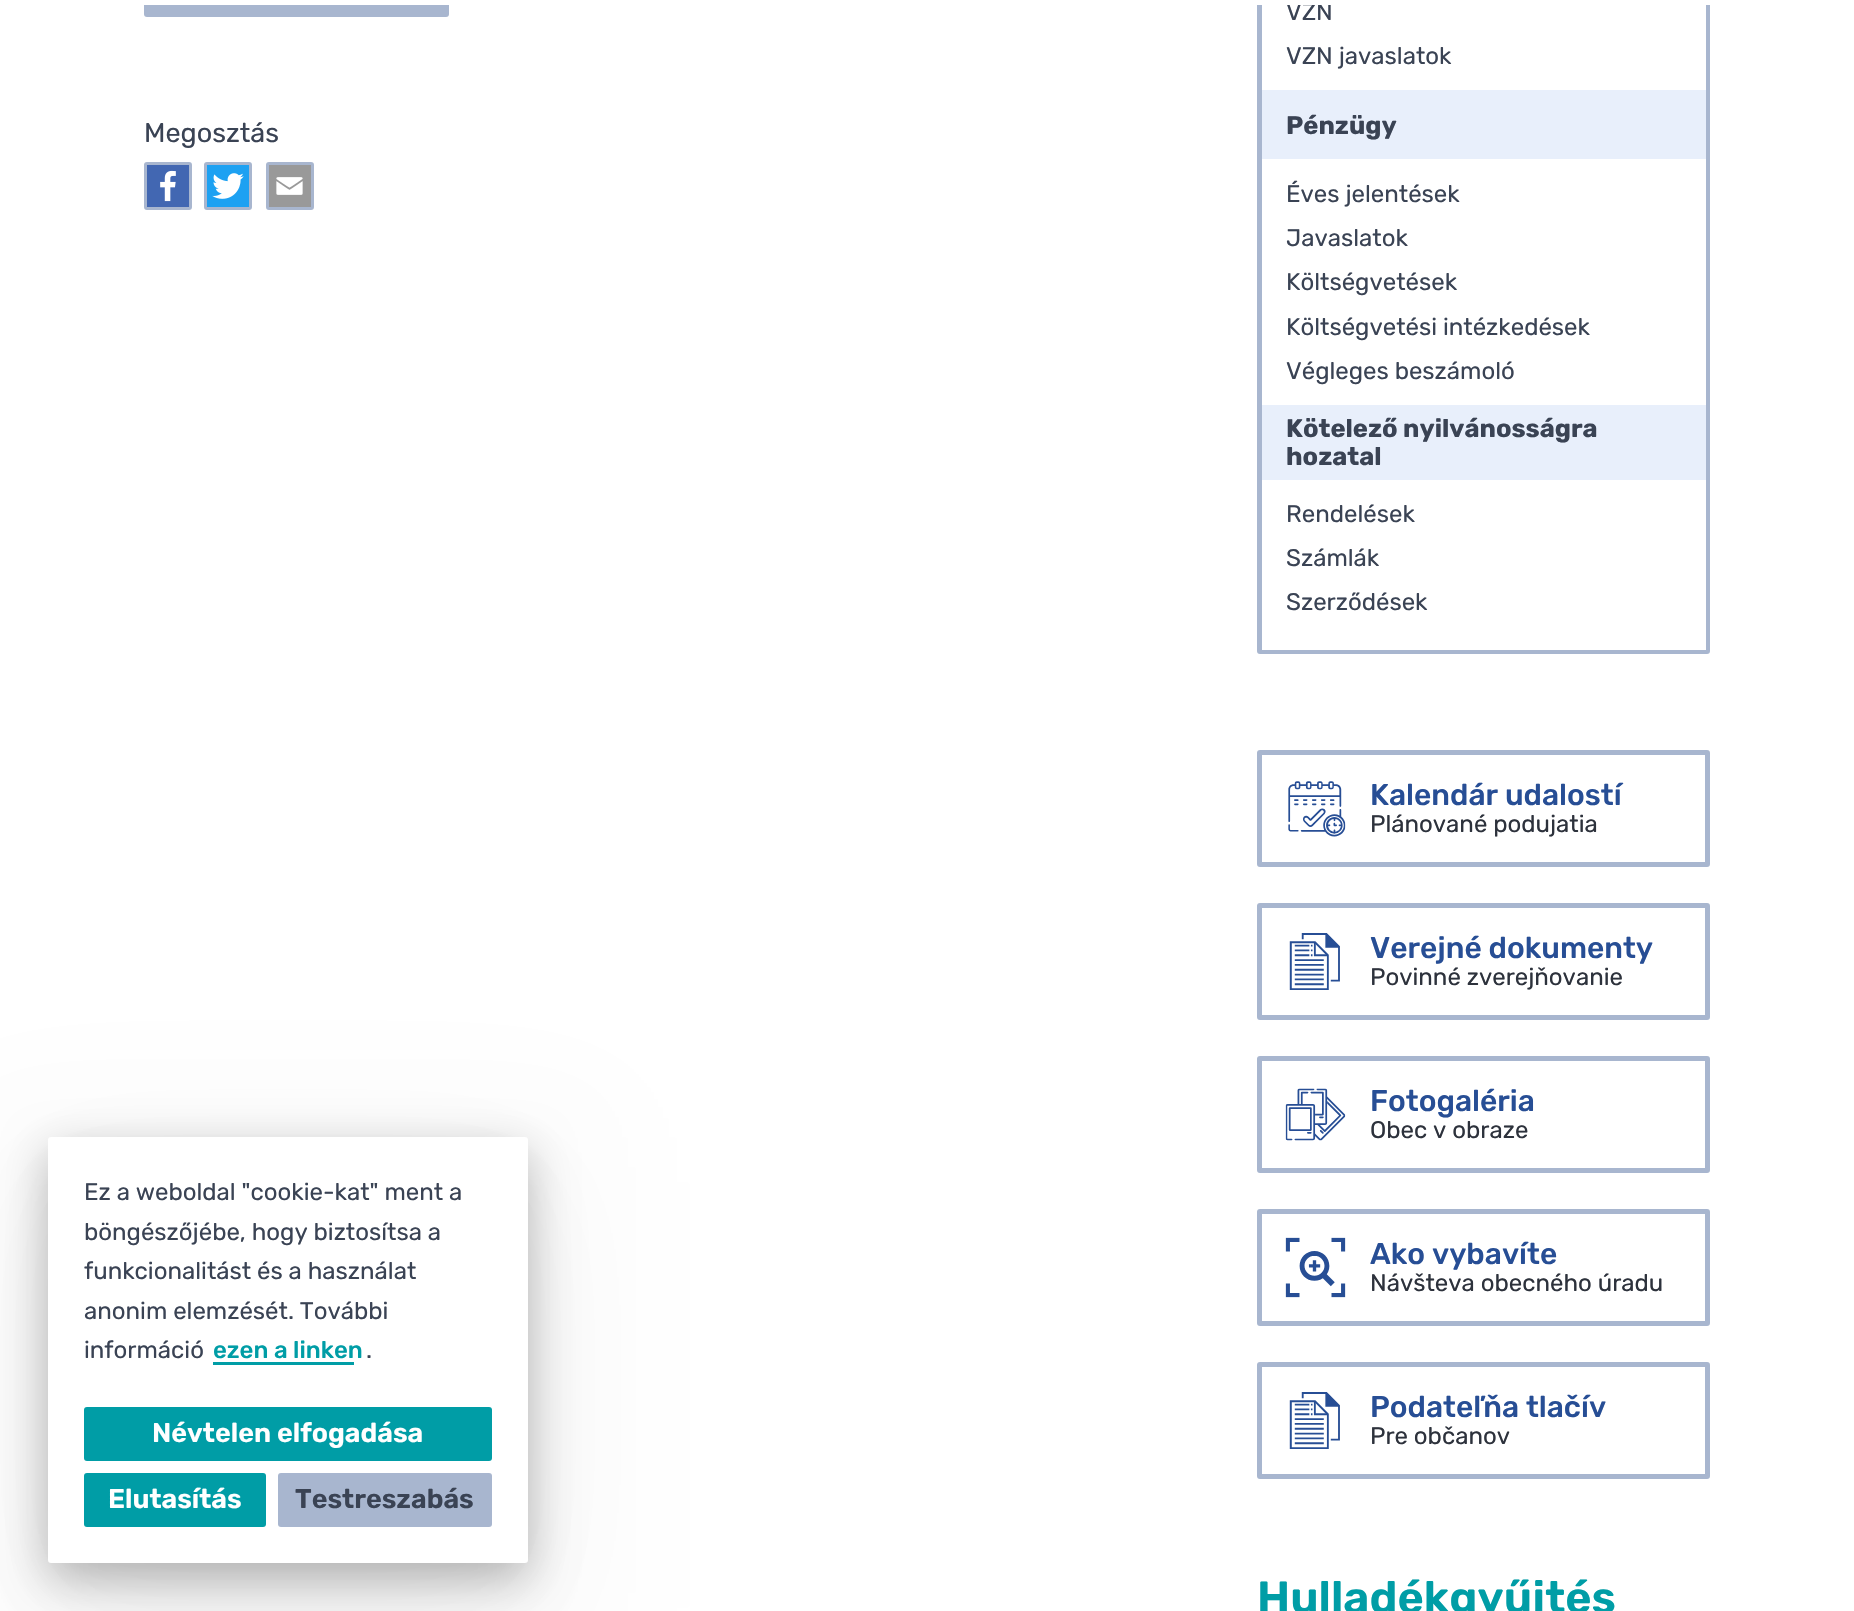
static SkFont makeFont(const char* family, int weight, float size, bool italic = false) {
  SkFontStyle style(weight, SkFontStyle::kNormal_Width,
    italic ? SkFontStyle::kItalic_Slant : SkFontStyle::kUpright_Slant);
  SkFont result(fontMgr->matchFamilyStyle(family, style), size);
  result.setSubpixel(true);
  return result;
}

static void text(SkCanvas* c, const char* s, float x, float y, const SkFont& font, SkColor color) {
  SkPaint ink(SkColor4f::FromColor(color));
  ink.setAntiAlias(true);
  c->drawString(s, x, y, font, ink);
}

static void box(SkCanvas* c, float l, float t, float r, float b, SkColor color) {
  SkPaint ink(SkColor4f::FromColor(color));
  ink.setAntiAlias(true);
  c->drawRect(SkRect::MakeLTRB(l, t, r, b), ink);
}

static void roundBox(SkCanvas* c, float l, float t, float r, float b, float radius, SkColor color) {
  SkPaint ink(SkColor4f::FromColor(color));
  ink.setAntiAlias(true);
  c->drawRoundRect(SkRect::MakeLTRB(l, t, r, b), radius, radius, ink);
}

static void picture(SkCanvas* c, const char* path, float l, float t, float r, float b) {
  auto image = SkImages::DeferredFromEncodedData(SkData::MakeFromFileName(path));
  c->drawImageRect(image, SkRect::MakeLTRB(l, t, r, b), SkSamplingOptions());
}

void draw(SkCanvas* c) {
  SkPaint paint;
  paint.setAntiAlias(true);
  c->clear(0xffffffff);
  roundBox(c, 144, -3, 449, 17, 3, 0xffa8b6cf);
  paint.setStyle(SkPaint::kStroke_Style);
  paint.setStrokeWidth(5);
  paint.setColor(0xffa8b6cf);
  c->drawRoundRect(SkRect::MakeLTRB(1259.5f, -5.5f, 1707.5f, 651.5f), 0.5f, 0.5f, paint);
  box(c, 1262, 5, 1706, 650, 0xffffffff);
  SkFont face1 = makeFont("Rubik", 400, 24);
  text(c, "VZN", 1286, 20, face1, 0xff3a4354);
  box(c, 144, 0, 1710, 5, 0xffffffff);
  SkFont face2 = makeFont("Rubik", 400, 27);
  text(c, "Megosztás", 144, 142, face2, 0xff3a4354);
  paint.setStyle(SkPaint::kFill_Style);
  paint.setColor(0xff4267b2);
  c->drawRoundRect(SkRect::MakeLTRB(145.5f, 163.5f, 190.5f, 208.5f), 1.5f, 1.5f, paint);
  paint.setStyle(SkPaint::kStroke_Style);
  paint.setStrokeWidth(3);
  paint.setColor(0xffa8b6cf);
  c->drawRoundRect(SkRect::MakeLTRB(145.5f, 163.5f, 190.5f, 208.5f), 1.5f, 1.5f, paint);
  picture(c, "img_01.png", 160, 170, 176, 202);
  paint.setStyle(SkPaint::kFill_Style);
  paint.setColor(0xff1da1f2);
  c->drawRoundRect(SkRect::MakeLTRB(205.5f, 163.5f, 250.5f, 208.5f), 1.5f, 1.5f, paint);
  paint.setStyle(SkPaint::kStroke_Style);
  paint.setColor(0xffa8b6cf);
  c->drawRoundRect(SkRect::MakeLTRB(205.5f, 163.5f, 250.5f, 208.5f), 1.5f, 1.5f, paint);
  picture(c, "img_02.png", 212, 173, 244, 199);
  paint.setStyle(SkPaint::kFill_Style);
  paint.setColor(0xff999999);
  c->drawRoundRect(SkRect::MakeLTRB(267.5f, 163.5f, 312.5f, 208.5f), 1.5f, 1.5f, paint);
  paint.setStyle(SkPaint::kStroke_Style);
  paint.setColor(0xffa8b6cf);
  c->drawRoundRect(SkRect::MakeLTRB(267.5f, 163.5f, 312.5f, 208.5f), 1.5f, 1.5f, paint);
  picture(c, "img_03.png", 276, 177, 303, 195);
  text(c, "VZN javaslatok", 1286, 64, face1, 0xff3a4354);
  box(c, 1262, 90, 1706, 159, 0xffe8effb);
  SkFont face3 = makeFont("Rubik", 700, 25.5f);
  text(c, "Pénzügy", 1286, 134, face3, 0xff3a4354);
  text(c, "Éves jelentések", 1286, 202, face1, 0xff3a4354);
  text(c, "Javaslatok", 1286, 246, face1, 0xff3a4354);
  text(c, "Költségvetések", 1286, 290, face1, 0xff3a4354);
  text(c, "Költségvetési intézkedések", 1286, 335, face1, 0xff3a4354);
  text(c, "Végleges beszámoló", 1286, 379, face1, 0xff3a4354);
  box(c, 1262, 405, 1706, 480, 0xffe8effb);
  text(c, "Kötelező nyilvánosságra", 1286, 437, face3, 0xff3a4354);
  text(c, "hozatal", 1286, 465, face3, 0xff3a4354);
  text(c, "Rendelések", 1286, 522, face1, 0xff3a4354);
  text(c, "Számlák", 1286, 566, face1, 0xff3a4354);
  text(c, "Szerződések", 1286, 610, face1, 0xff3a4354);
  paint.setStrokeWidth(5);
  c->drawRoundRect(SkRect::MakeLTRB(1259.5f, 752.5f, 1707.5f, 864.5f), 0.5f, 0.5f, paint);
  picture(c, "img_04.png", 1288, 781, 1346, 837);
  SkFont face4 = makeFont("Rubik", 500, 30);
  text(c, "Kalendár udalostí", 1370, 805, face4, 0xff274e95);
  text(c, "Plánované podujatia", 1370, 832, face1, 0xff2d323c);
  c->drawRoundRect(SkRect::MakeLTRB(1259.5f, 905.5f, 1707.5f, 1017.5f), 0.5f, 0.5f, paint);
  picture(c, "img_05.png", 1289, 933, 1340, 990);
  text(c, "Verejné dokumenty", 1370, 958, face4, 0xff274e95);
  text(c, "Povinné zverejňovanie", 1370, 985, face1, 0xff2d323c);
  c->drawRoundRect(SkRect::MakeLTRB(1259.5f, 1058.5f, 1707.5f, 1170.5f), 0.5f, 0.5f, paint);
  picture(c, "img_06.png", 1285, 1088, 1346, 1141);
  text(c, "Fotogaléria", 1370, 1111, face4, 0xff274e95);
  text(c, "Obec v obraze", 1370, 1138, face1, 0xff2d323c);
  c->drawRoundRect(SkRect::MakeLTRB(1259.5f, 1211.5f, 1707.5f, 1323.5f), 0.5f, 0.5f, paint);
  picture(c, "img_07.png", 1285, 1237, 1346, 1298);
  text(c, "Ako vybavíte", 1370, 1264, face4, 0xff274e95);
  text(c, "Návšteva obecného úradu", 1370, 1291, face1, 0xff2d323c);
  c->drawRoundRect(SkRect::MakeLTRB(1259.5f, 1364.5f, 1707.5f, 1476.5f), 0.5f, 0.5f, paint);
  picture(c, "img_05.png", 1289, 1392, 1340, 1449);
  text(c, "Podateľňa tlačív", 1370, 1417, face4, 0xff274e95);
  text(c, "Pre občanov", 1370, 1444, face1, 0xff2d323c);
  SkFont face5 = makeFont("Rubik", 600, 45);
  text(c, "Hulladékgyűjtés", 1257, 1613, face5, 0xff009da6);
  paint.setStyle(SkPaint::kFill_Style);
  paint.setColor(0x0d000000);
  paint.setMaskFilter(SkMaskFilter::MakeBlur(kNormal_SkBlurStyle, 67.5f));
  c->drawRoundRect(SkRect::MakeLTRB(48, 1182, 528, 1608), 3, 3, paint);
  paint.setMaskFilter(nullptr);
  paint.setMaskFilter(SkMaskFilter::MakeBlur(kNormal_SkBlurStyle, 45));
  c->drawRoundRect(SkRect::MakeLTRB(48, 1167, 528, 1593), 3, 3, paint);
  paint.setMaskFilter(nullptr);
  paint.setColor(0x40000000);
  paint.setMaskFilter(SkMaskFilter::MakeBlur(kNormal_SkBlurStyle, 22.5f));
  c->drawRoundRect(SkRect::MakeLTRB(48, 1152, 528, 1578), 3, 3, paint);
  paint.setMaskFilter(nullptr);
  roundBox(c, 48, 1137, 528, 1563, 3, 0xffffffff);
  text(c, "Ez a weboldal \"cookie-kat\" ment a", 84, 1200, face1, 0xff3a4354);
  text(c, "böngészőjébe, hogy biztosítsa a", 84, 1240, face1, 0xff3a4354);
  text(c, "funkcionalitást és a használat", 84, 1279, face1, 0xff3a4354);
  text(c, "anonim elemzését. További", 84, 1319, face1, 0xff3a4354);
  text(c, "információ", 84, 1358, face1, 0xff3a4354);
  SkFont face6 = makeFont("Rubik", 500, 24);
  text(c, "ezen a linken", 213, 1358, face6, 0xff009da6);
  box(c, 213, 1362, 354, 1365, 0xff009da6);
  text(c, ".", 366, 1358, face1, 0xff3a4354);
  roundBox(c, 84, 1407, 492, 1461, 3, 0xff009da6);
  SkFont face7 = makeFont("Rubik", 600, 27);
  text(c, "Névtelen elfogadása", 152, 1442, face7, 0xffffffff);
  roundBox(c, 84, 1473, 266, 1527, 3, 0xff009da6);
  text(c, "Elutasítás", 108, 1508, face7, 0xffffffff);
  roundBox(c, 278, 1473, 492, 1527, 3, 0xffa8b6cf);
  text(c, "Testreszabás", 295, 1508, face7, 0xff3a4354);
}
